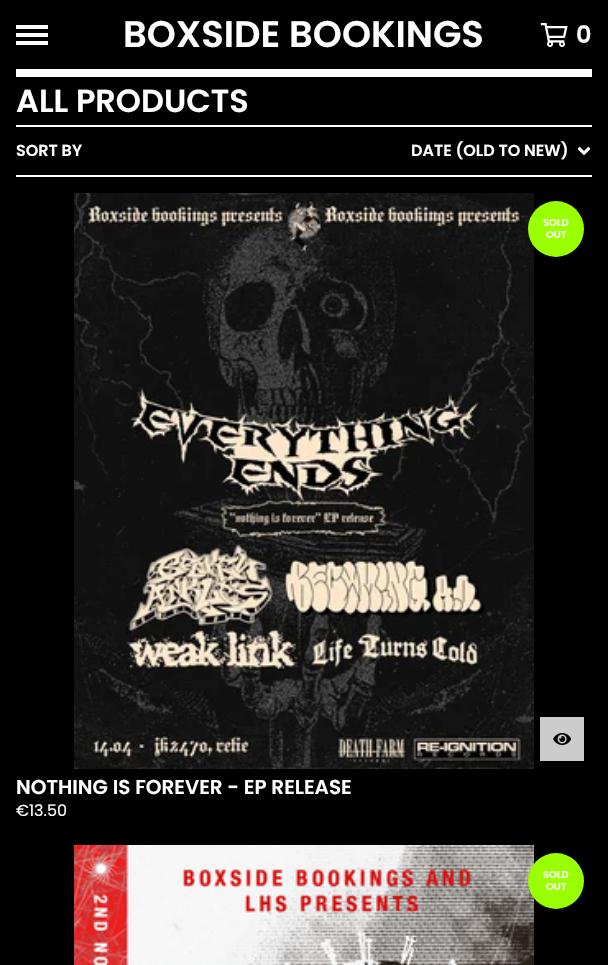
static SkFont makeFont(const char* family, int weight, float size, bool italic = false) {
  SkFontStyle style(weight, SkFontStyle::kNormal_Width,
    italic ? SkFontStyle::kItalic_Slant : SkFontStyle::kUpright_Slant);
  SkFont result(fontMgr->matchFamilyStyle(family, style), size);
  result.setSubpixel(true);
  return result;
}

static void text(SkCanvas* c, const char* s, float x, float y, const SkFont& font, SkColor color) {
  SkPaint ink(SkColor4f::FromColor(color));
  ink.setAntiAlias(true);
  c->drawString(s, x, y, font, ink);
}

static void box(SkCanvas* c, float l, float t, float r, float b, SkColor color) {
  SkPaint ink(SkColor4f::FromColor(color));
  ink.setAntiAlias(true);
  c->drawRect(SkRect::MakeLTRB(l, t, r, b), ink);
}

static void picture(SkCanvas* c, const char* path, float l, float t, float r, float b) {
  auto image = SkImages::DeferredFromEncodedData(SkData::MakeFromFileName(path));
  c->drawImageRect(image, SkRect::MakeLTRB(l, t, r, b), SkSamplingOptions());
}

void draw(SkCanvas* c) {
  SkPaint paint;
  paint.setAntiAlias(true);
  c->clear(0xff000000);
  box(c, 16, 69, 592, 77, 0xffffffff);
  box(c, 16, 33, 48, 37, 0xffffffff);
  box(c, 16, 25, 48, 29, 0xffffffff);
  box(c, 16, 41, 48, 45, 0xffffffff);
  SkFont face1 = makeFont("Poppins", 600, 37);
  text(c, "BOXSIDE BOOKINGS", 123, 47, face1, 0xffffffff);
  picture(c, "img_01.png", 540, 23, 568, 47);
  SkFont face2 = makeFont("Poppins", 600, 24);
  text(c, "0", 576, 43, face2, 0xffffffff);
  box(c, 16, 175, 592, 177, 0xffffffff);
  box(c, 16, 125, 592, 127, 0xffffffff);
  SkFont face3 = makeFont("Poppins", 600, 32);
  text(c, "ALL PRODUCTS", 16, 112, face3, 0xffffffff);
  SkFont face4 = makeFont("Poppins", 600, 16);
  text(c, "SORT BY", 16, 156, face4, 0xffffffff);
  text(c, "DATE (OLD TO NEW)", 411, 156, face4, 0xffffffff);
  picture(c, "img_02.png", 577, 147, 591, 155);
  picture(c, "img_03.png", 74, 193, 534, 769);
  paint.setColor(0xff9aff00);
  c->drawCircle(556, 229, 28, paint);
  SkFont face5 = makeFont("Poppins", 600, 10);
  text(c, "SOLD", 543, 226, face5, 0xffffffff);
  text(c, "OUT", 546, 238, face5, 0xffffffff);
  box(c, 540, 717, 584, 761, 0xffcccccc);
  picture(c, "img_04.png", 553, 733, 572, 745);
  SkFont face6 = makeFont("Poppins", 600, 20);
  text(c, "NOTHING IS FOREVER - EP RELEASE", 16, 794, face6, 0xffffffff);
  SkFont face7 = makeFont("Poppins", 400, 16);
  text(c, "€13.50", 16, 816, face7, 0xffffffff);
  picture(c, "img_05.png", 74, 845, 534, 965);
  c->drawCircle(556, 881, 28, paint);
  text(c, "SOLD", 543, 878, face5, 0xffffffff);
  text(c, "OUT", 546, 890, face5, 0xffffffff);
}
